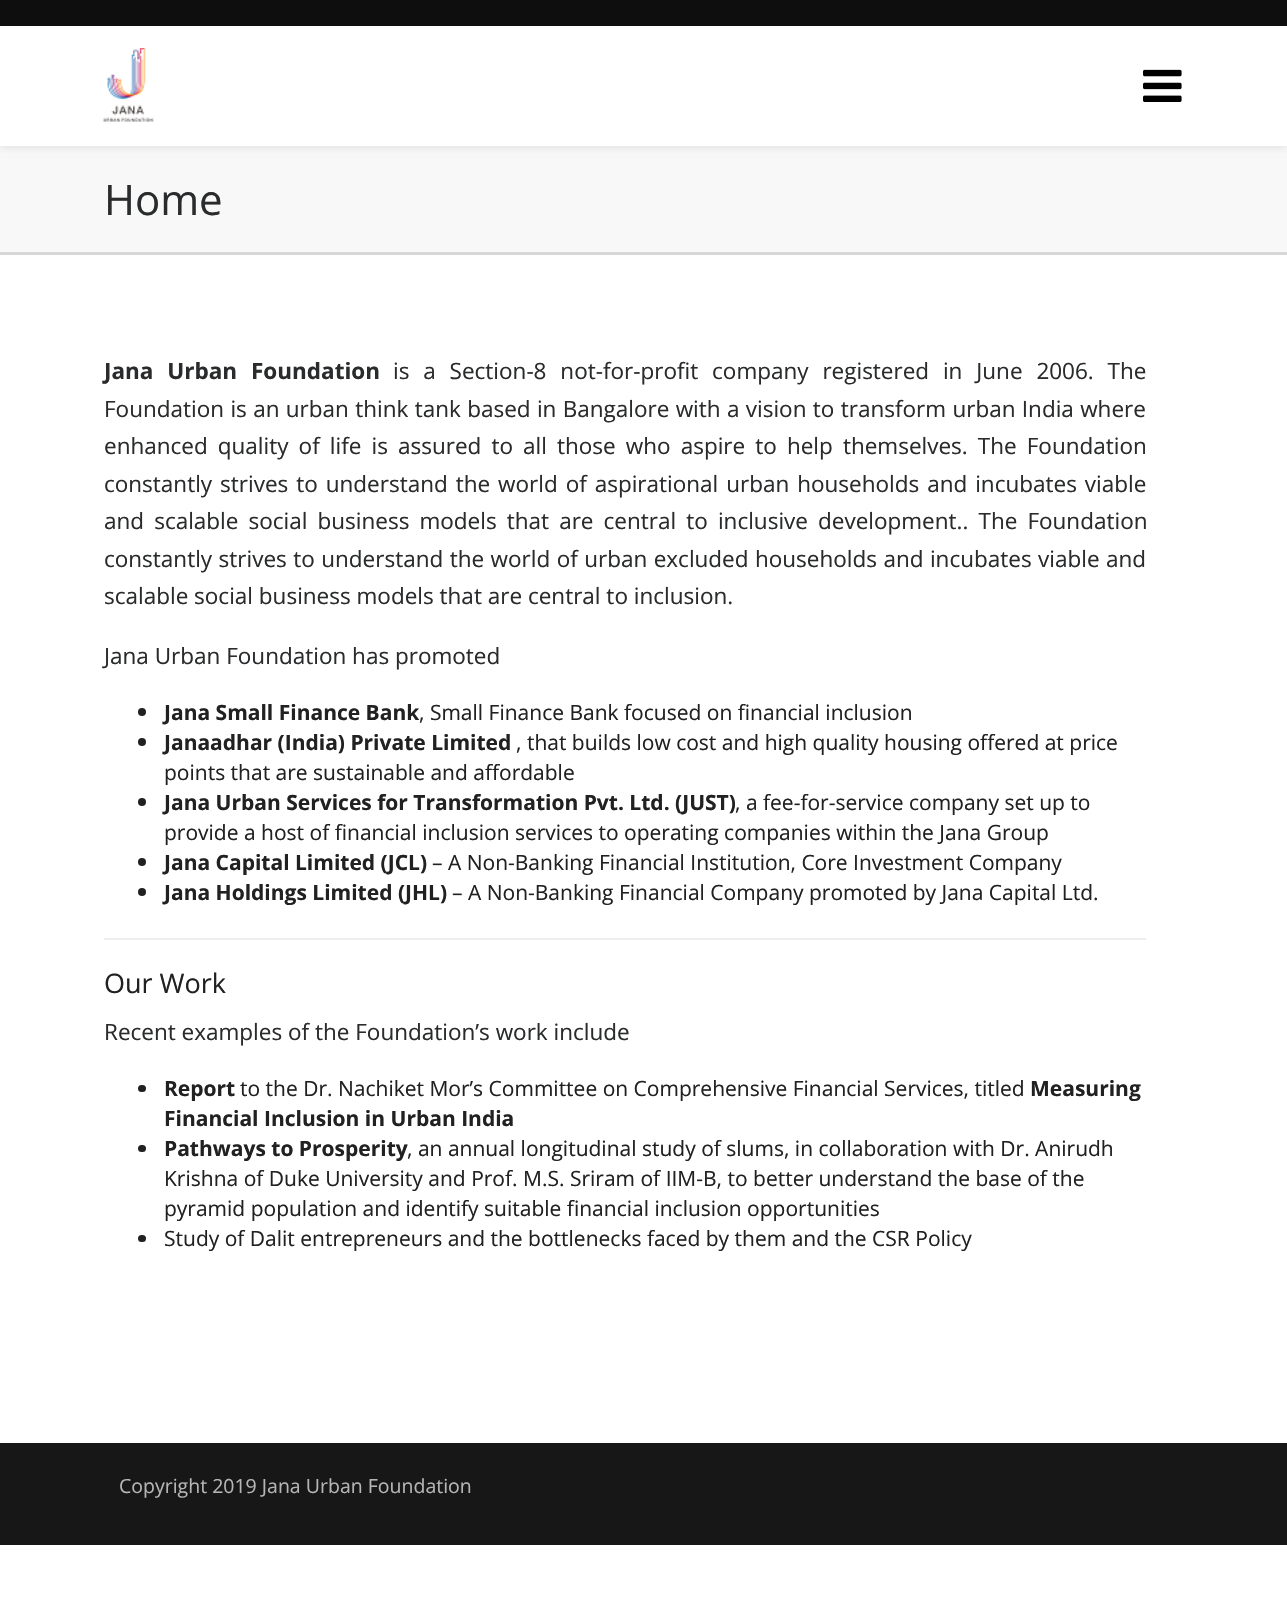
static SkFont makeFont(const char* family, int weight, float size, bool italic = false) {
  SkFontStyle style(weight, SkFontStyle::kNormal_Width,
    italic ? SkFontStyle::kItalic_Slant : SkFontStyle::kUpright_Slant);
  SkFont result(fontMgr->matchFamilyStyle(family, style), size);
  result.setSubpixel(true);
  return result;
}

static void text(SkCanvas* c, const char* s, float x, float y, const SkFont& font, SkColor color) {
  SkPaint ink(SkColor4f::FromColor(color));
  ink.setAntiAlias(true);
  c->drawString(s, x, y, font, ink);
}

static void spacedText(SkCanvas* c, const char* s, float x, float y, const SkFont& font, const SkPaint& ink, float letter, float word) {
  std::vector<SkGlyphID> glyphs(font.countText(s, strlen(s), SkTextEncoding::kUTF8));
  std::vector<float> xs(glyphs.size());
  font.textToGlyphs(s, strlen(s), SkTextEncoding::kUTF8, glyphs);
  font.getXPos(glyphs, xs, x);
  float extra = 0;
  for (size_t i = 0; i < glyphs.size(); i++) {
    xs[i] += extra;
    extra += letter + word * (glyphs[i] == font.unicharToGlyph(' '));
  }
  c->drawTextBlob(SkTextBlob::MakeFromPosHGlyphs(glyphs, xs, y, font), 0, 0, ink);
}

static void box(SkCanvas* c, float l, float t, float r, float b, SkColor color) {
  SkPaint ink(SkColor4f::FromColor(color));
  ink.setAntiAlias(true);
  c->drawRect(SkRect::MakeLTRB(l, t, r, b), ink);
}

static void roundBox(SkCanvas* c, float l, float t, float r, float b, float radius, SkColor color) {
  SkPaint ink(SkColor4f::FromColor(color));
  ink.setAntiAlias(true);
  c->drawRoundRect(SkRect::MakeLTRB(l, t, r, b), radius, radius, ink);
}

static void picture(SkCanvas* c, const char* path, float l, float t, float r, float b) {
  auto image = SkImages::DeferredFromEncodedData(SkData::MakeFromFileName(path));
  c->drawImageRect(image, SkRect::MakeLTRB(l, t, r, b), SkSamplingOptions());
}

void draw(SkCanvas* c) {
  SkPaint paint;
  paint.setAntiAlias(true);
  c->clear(0xffffffff);
  box(c, 0, 0, 1287, 26, 0xff0e0e0e);
  box(c, 0, 146, 1287, 252, 0xfff8f8f8);
  c->save();
  c->clipPath(SkPathBuilder(SkPathFillType::kEvenOdd).moveTo(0, 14).lineTo(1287, 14).lineTo(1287, 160).lineTo(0, 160).close().moveTo(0, 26).lineTo(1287, 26).lineTo(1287, 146).lineTo(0, 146).close().detach(), true);
  paint.setColor(0x1a000000);
  paint.setMaskFilter(SkMaskFilter::MakeBlur(kNormal_SkBlurStyle, 4));
  c->drawRect(SkRect::MakeLTRB(0, 27, 1287, 147), paint);
  paint.setMaskFilter(nullptr);
  c->restore();
  picture(c, "img_01.png", 103, 48, 154, 122);
  picture(c, "img_02.png", 1143, 69, 1182, 102);
  box(c, 0, 252, 1287, 255, 0xffd7d7d7);
  SkFont face1 = makeFont("Open Sans", 400, 42);
  text(c, "Home", 104, 215, face1, 0xff2a2b2c);
  SkFont face2 = makeFont("Open Sans", 700, 22.5f);
  paint.setColor(0xff2a2b2c);
  spacedText(c, "Jana Urban Foundation", 104, 379, face2, paint, 0, 8);
  SkFont face3 = makeFont("Open Sans", 400, 22.5f);
  spacedText(c, "is a Section-8 not-for-profit company registered in June 2006. The", 393, 379, face3, paint, 0, 8);
  spacedText(c, "Foundation is an urban think tank based in Bangalore with a vision to transform urban India where", 104, 417, face3, paint, 0, 0.5f);
  spacedText(c, "enhanced quality of life is assured to all those who aspire to help themselves. The Foundation", 104, 454, face3, paint, 0, 4.25f);
  spacedText(c, "constantly strives to understand the world of aspirational urban households and incubates viable", 104, 492, face3, paint, 0, 2.1f);
  spacedText(c, "and scalable social business models that are central to inclusive development.. The Foundation", 104, 529, face3, paint, 0, 4.25f);
  spacedText(c, "constantly strives to understand the world of urban excluded households and incubates viable and", 104, 567, face3, paint, 0, 0.6f);
  text(c, "scalable social business models that are central to inclusion.", 104, 604, face3, 0xff2a2b2c);
  text(c, "Jana Urban Foundation has promoted", 104, 664, face3, 0xff2a2b2c);
  paint.setColor(0xff212121);
  c->drawCircle(142, 712, 4, paint);
  SkFont face4 = makeFont("Open Sans", 700, 21);
  text(c, "Jana Small Finance Bank", 164, 720, face4, 0xff212121);
  SkFont face5 = makeFont("Open Sans", 400, 21);
  text(c, ", Small Finance Bank focused on financial inclusion", 419, 720, face5, 0xff212121);
  c->drawCircle(142, 742, 4, paint);
  text(c, "Janaadhar (India) Private Limited", 164, 750, face4, 0xff212121);
  text(c, ", that builds low cost and high quality housing offered at price", 516, 750, face5, 0xff212121);
  text(c, "points that are sustainable and affordable", 164, 780, face5, 0xff212121);
  c->drawCircle(142, 802, 4, paint);
  text(c, "Jana Urban Services for Transformation Pvt. Ltd. (JUST)", 164, 810, face4, 0xff212121);
  text(c, ", a fee-for-service company set up to", 735, 810, face5, 0xff212121);
  text(c, "provide a host of financial inclusion services to operating companies within the Jana Group", 164, 840, face5, 0xff212121);
  c->drawCircle(142, 862, 4, paint);
  text(c, "Jana Capital Limited (JCL)", 164, 870, face4, 0xff212121);
  text(c, "– A Non-Banking Financial Institution, Core Investment Company", 432, 870, face5, 0xff212121);
  c->drawCircle(142, 892, 4, paint);
  text(c, "Jana Holdings Limited (JHL)", 164, 900, face4, 0xff212121);
  text(c, "– A Non-Banking Financial Company promoted by Jana Capital Ltd.", 452, 900, face5, 0xff212121);
  box(c, 104, 938, 1146, 940, 0xffeeeeee);
  SkFont face6 = makeFont("Open Sans", 400, 27);
  text(c, "Our Work", 104, 993, face6, 0xff212121);
  text(c, "Recent examples of the Foundation’s work include", 104, 1040, face3, 0xff2a2b2c);
  roundBox(c, 138, 1085, 146, 1092, 3.5f, 0xff212121);
  text(c, "Report", 164, 1096, face4, 0xff212121);
  text(c, "to the Dr. Nachiket Mor’s Committee on Comprehensive Financial Services, titled", 240, 1096, face5, 0xff212121);
  text(c, "Measuring", 1030, 1096, face4, 0xff212121);
  text(c, "Financial Inclusion in Urban India", 164, 1126, face4, 0xff212121);
  roundBox(c, 138, 1145, 146, 1152, 3.5f, 0xff212121);
  text(c, "Pathways to Prosperity", 164, 1156, face4, 0xff212121);
  text(c, ", an annual longitudinal study of slums, in collaboration with Dr. Anirudh", 407, 1156, face5, 0xff212121);
  text(c, "Krishna of Duke University and Prof. M.S. Sriram of IIM-B, to better understand the base of the", 164, 1186, face5, 0xff212121);
  text(c, "pyramid population and identify suitable financial inclusion opportunities", 164, 1216, face5, 0xff212121);
  roundBox(c, 138, 1235, 146, 1242, 3.5f, 0xff212121);
  text(c, "Study of Dalit entrepreneurs and the bottlenecks faced by them and the CSR Policy", 164, 1246, face5, 0xff212121);
  box(c, 0, 1443, 1287, 1545, 0xff171717);
  SkFont face7 = makeFont("Open Sans", 400, 19.5f);
  text(c, "Copyright 2019 Jana Urban Foundation", 119, 1493, face7, 0xffb5b5b5);
}
